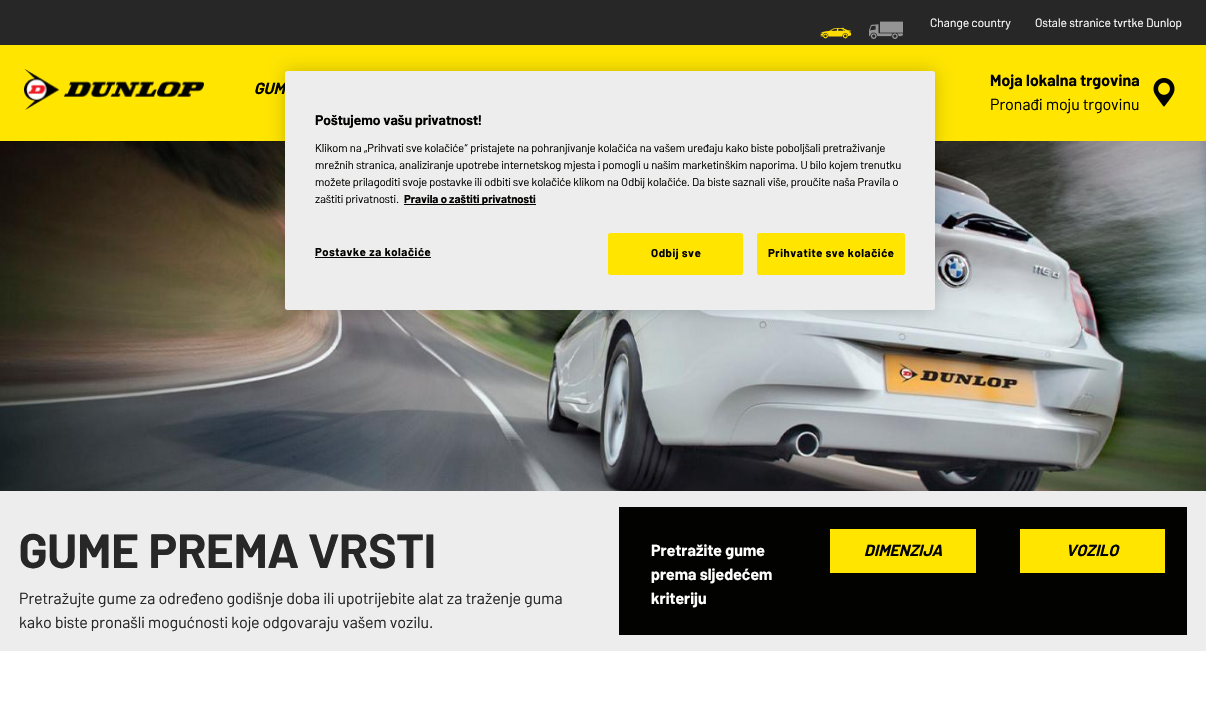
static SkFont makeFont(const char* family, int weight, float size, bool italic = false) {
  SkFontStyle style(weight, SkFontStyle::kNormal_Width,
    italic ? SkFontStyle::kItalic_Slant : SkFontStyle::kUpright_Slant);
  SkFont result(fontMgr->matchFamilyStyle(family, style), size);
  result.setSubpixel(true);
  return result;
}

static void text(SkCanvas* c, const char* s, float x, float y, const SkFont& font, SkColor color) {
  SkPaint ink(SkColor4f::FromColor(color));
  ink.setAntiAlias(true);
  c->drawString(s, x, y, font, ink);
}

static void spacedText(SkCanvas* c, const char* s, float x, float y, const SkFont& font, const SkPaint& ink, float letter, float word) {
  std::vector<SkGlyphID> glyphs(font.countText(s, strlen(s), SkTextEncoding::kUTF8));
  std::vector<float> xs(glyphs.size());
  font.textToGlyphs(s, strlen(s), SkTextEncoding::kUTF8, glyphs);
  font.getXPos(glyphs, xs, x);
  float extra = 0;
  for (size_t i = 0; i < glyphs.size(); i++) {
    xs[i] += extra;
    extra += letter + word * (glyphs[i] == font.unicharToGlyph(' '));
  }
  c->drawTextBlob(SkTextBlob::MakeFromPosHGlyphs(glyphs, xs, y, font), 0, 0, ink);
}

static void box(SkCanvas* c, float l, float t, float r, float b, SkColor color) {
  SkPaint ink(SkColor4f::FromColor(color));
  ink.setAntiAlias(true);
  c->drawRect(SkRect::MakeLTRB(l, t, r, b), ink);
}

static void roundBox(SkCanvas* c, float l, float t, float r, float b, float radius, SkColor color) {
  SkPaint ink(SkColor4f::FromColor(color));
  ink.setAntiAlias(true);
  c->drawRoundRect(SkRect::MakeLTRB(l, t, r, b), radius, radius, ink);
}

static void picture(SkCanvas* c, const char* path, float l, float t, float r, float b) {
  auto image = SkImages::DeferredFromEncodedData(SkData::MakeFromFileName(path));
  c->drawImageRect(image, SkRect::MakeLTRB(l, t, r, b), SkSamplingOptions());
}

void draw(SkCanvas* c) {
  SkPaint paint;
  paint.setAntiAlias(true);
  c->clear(0xffffffff);
  box(c, 0, 45, 1206, 141, 0xffffe500);
  box(c, 0, 0, 1206, 45, 0xff272727);
  picture(c, "img_01.png", 820, 27, 852, 39);
  picture(c, "img_02.png", 869, 21, 903, 39);
  SkFont face1 = makeFont("Barlow", 400, 12);
  paint.setColor(0xffffffff);
  spacedText(c, "Change country", 930, 27, face1, paint, 0.1f, 0);
  spacedText(c, "Ostale stranice tvrtke Dunlop", 1035, 27, face1, paint, 0.1f, 0);
  picture(c, "img_03.png", 24, 69, 204, 110);
  SkFont face2 = makeFont("Barlow", 700, 16, true);
  paint.setColor(0xff020200);
  spacedText(c, "GUM", 254, 94, face2, paint, 0.1f, 0);
  SkFont face3 = makeFont("Barlow", 700, 16);
  spacedText(c, "Moja lokalna trgovina", 990, 86, face3, paint, 0.1f, 0);
  SkFont face4 = makeFont("Barlow", 400, 16);
  spacedText(c, "Pronađi moju trgovinu", 990, 110, face4, paint, 0.1f, 0);
  picture(c, "img_04.png", 1153, 78, 1175, 107);
  picture(c, "img_05.png", 0, 141, 1206, 491);
  paint.setColor(0x33000000);
  paint.setMaskFilter(SkMaskFilter::MakeBlur(kNormal_SkBlurStyle, 9));
  c->drawRoundRect(SkRect::MakeLTRB(285, 71, 935, 310), 2.5f, 2.5f, paint);
  paint.setMaskFilter(nullptr);
  roundBox(c, 285, 71, 935, 310, 2.5f, 0xffededed);
  SkFont face5 = makeFont("Barlow", 700, 14);
  text(c, "Poštujemo vašu privatnost!", 315, 125, face5, 0xff020200);
  SkFont face6 = makeFont("Barlow", 400, 11.38f);
  text(c, "Klikom na „Prihvati sve kolačiće“ pristajete na pohranjivanje kolačića na vašem uređaju kako biste poboljšali pretraživanje", 315, 152, face6, 0xff020200);
  text(c, "mrežnih stranica, analiziranje upotrebe internetskog mjesta i pomogli u našim marketinškim naporima. U bilo kojem trenutku", 315, 169, face6, 0xff020200);
  text(c, "možete prilagoditi svoje postavke ili odbiti sve kolačiće klikom na Odbij kolačiće. Da biste saznali više, proučite naša Pravila o", 315, 186, face6, 0xff020200);
  text(c, "zaštiti privatnosti.", 315, 203, face6, 0xff020200);
  box(c, 404, 204, 536, 205, 0xff020200);
  SkFont face7 = makeFont("Barlow", 700, 11.38f);
  text(c, "Pravila o zaštiti privatnosti", 404, 203, face7, 0xff020200);
  paint.setColor(0xff020200);
  spacedText(c, "Postavke za kolačiće", 315, 256, face7, paint, 0.6f, 0);
  box(c, 315, 257, 431, 258, 0xff020200);
  paint.setColor(0xffffe500);
  c->drawRoundRect(SkRect::MakeLTRB(608.5f, 233.5f, 742.5f, 274.5f), 1.5f, 1.5f, paint);
  paint.setStyle(SkPaint::kStroke_Style);
  paint.setStrokeWidth(1);
  c->drawRoundRect(SkRect::MakeLTRB(608.5f, 233.5f, 742.5f, 274.5f), 1.5f, 1.5f, paint);
  paint.setStyle(SkPaint::kFill_Style);
  paint.setColor(0xff020200);
  spacedText(c, "Odbij sve", 651, 257, face7, paint, 0.6f, 0);
  paint.setColor(0xffffe500);
  c->drawRoundRect(SkRect::MakeLTRB(757.5f, 233.5f, 904.5f, 274.5f), 1.5f, 1.5f, paint);
  paint.setStyle(SkPaint::kStroke_Style);
  c->drawRoundRect(SkRect::MakeLTRB(757.5f, 233.5f, 904.5f, 274.5f), 1.5f, 1.5f, paint);
  paint.setStyle(SkPaint::kFill_Style);
  paint.setColor(0xff020200);
  spacedText(c, "Prihvatite sve kolačiće", 768, 257, face7, paint, 0.6f, 0);
  box(c, 0, 491, 1206, 651, 0xffededed);
  SkFont face8 = makeFont("Barlow", 700, 48);
  paint.setColor(0xff272727);
  spacedText(c, "GUME PREMA VRSTI", 19, 568, face8, paint, 0.1f, 0);
  spacedText(c, "Pretražujte gume za određeno godišnje doba ili upotrijebite alat za traženje guma", 19, 604, face4, paint, 0.1f, 0);
  spacedText(c, "kako biste pronašli mogućnosti koje odgovaraju vašem vozilu.", 19, 628, face4, paint, 0.1f, 0);
  box(c, 619, 507, 1187, 635, 0xff020200);
  paint.setColor(0xffffffff);
  spacedText(c, "Pretražite gume", 651, 556, face3, paint, 0.1f, 0);
  spacedText(c, "prema sljedećem", 651, 580, face3, paint, 0.1f, 0);
  spacedText(c, "kriteriju", 651, 604, face3, paint, 0.1f, 0);
  box(c, 830, 529, 976, 573, 0xffffe500);
  paint.setColor(0xff020200);
  spacedText(c, "DIMENZIJA", 864, 556, face2, paint, 0.1f, 0);
  box(c, 1020, 529, 1165, 573, 0xffffe500);
  spacedText(c, "VOZILO", 1066, 556, face2, paint, 0.1f, 0);
}
